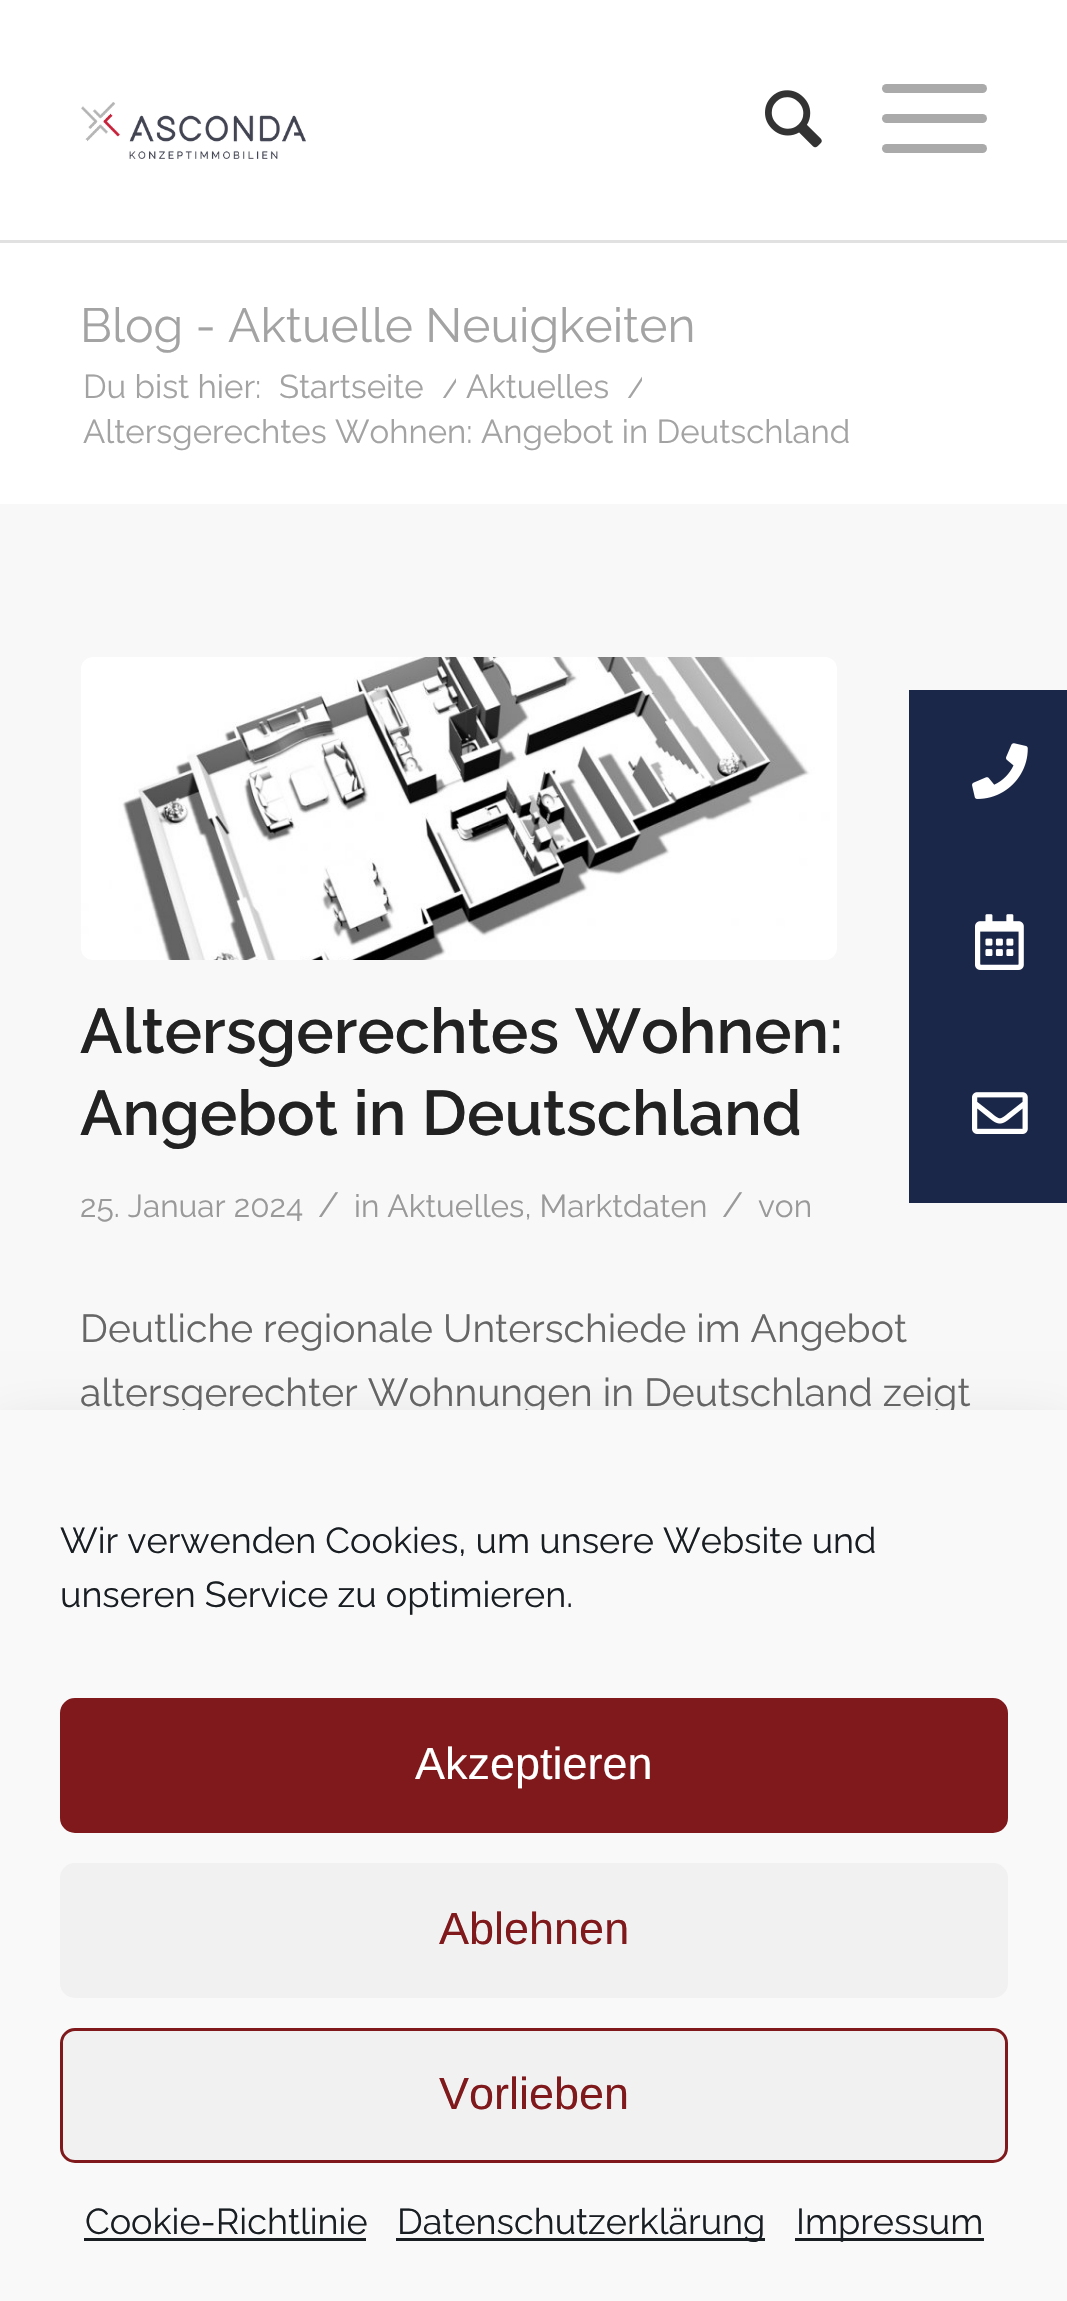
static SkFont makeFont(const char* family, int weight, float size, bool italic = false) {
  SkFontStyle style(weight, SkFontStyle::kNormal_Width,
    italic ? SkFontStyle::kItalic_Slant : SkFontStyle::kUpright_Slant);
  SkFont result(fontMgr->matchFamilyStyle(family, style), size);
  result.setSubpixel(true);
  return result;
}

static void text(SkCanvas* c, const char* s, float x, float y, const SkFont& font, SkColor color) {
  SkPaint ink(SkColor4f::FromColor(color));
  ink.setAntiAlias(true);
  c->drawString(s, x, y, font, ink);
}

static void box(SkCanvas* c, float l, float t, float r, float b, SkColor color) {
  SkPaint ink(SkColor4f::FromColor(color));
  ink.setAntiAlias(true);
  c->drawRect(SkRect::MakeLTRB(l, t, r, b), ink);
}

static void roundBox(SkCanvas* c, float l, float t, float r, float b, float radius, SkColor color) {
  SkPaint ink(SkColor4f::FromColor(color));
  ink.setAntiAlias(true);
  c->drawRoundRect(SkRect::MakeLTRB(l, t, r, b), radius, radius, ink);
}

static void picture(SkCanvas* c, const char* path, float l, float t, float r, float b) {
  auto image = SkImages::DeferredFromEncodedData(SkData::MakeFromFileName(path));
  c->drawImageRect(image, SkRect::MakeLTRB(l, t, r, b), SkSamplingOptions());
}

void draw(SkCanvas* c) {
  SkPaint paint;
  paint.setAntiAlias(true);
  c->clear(0xffffffff);
  box(c, 0, 240, 1067, 243, 0xffe1e1e1);
  picture(c, "img_01.png", 81, 102, 306, 159);
  picture(c, "img_02.png", 765, 90, 822, 148);
  roundBox(c, 882, 114, 987, 123, 4.5f, 0xffaaaaaa);
  roundBox(c, 882, 84, 987, 93, 4.5f, 0xffaaaaaa);
  roundBox(c, 882, 144, 987, 153, 4.5f, 0xffaaaaaa);
  SkFont face1 = makeFont("Raleway", 400, 48);
  text(c, "Blog - Aktuelle Neuigkeiten", 80, 342, face1, 0xffa3a3a3);
  SkFont face2 = makeFont("Raleway", 400, 33);
  text(c, "Du bist hier:", 83, 398, face2, 0xffa3a3a3);
  text(c, "Startseite", 279, 398, face2, 0xffa3a3a3);
  c->save();
  c->clipRect(SkRect::MakeLTRB(432, 366, 456, 411));
  text(c, "/", 442, 398, face2, 0xffa3a3a3);
  c->restore();
  text(c, "Aktuelles", 466, 398, face2, 0xffa3a3a3);
  c->save();
  c->clipRect(SkRect::MakeLTRB(618, 366, 642, 411));
  text(c, "/", 627, 398, face2, 0xffa3a3a3);
  c->restore();
  text(c, "Altersgerechtes Wohnen: Angebot in Deutschland", 83, 443, face2, 0xffa3a3a3);
  box(c, 0, 504, 1067, 1410, 0xfff8f8f8);
  picture(c, "img_03.png", 81, 657, 837, 960);
  SkFont face3 = makeFont("Raleway", 600, 63);
  text(c, "Altersgerechtes Wohnen:", 80, 1053, face3, 0xff222222);
  text(c, "Angebot in Deutschland", 80, 1135, face3, 0xff222222);
  SkFont face4 = makeFont("Raleway", 400, 31.6f);
  text(c, "25. Januar 2024", 80, 1217, face4, 0xff999999);
  SkFont face5 = makeFont("Raleway", 400, 35);
  text(c, "/", 318, 1217, face5, 0xff999999);
  text(c, "in Aktuelles, Marktdaten", 354, 1217, face4, 0xff999999);
  text(c, "/", 722, 1217, face5, 0xff999999);
  text(c, "von", 758, 1217, face4, 0xff999999);
  SkFont face6 = makeFont("Raleway", 400, 39);
  text(c, "Deutliche regionale Unterschiede im Angebot", 80, 1342, face6, 0xff666666);
  text(c, "altersgerechter Wohnungen in Deutschland zeigt", 80, 1406, face6, 0xff666666);
  box(c, 909, 690, 1067, 1203, 0xff1b2748);
  picture(c, "img_04.png", 972, 743, 1028, 799);
  picture(c, "img_05.png", 975, 914, 1024, 970);
  picture(c, "img_06.png", 972, 1092, 1028, 1134);
  paint.setColor(0x30000000);
  paint.setMaskFilter(SkMaskFilter::MakeBlur(kNormal_SkBlurStyle, 30));
  c->drawRect(SkRect::MakeLTRB(0, 1440, 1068, 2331), paint);
  paint.setMaskFilter(nullptr);
  box(c, 0, 1410, 1067, 2301, 0xfff9f9f9);
  SkFont face7 = makeFont("Raleway", 400, 36);
  text(c, "Wir verwenden Cookies, um unsere Website und", 60, 1553, face7, 0xff191e23);
  text(c, "unseren Service zu optimieren.", 60, 1607, face7, 0xff191e23);
  paint.setColor(0xff7f191c);
  c->drawRoundRect(SkRect::MakeLTRB(61.5f, 1699.5f, 1006.5f, 1831.5f), 13.5f, 13.5f, paint);
  paint.setStyle(SkPaint::kStroke_Style);
  paint.setStrokeWidth(3);
  c->drawRoundRect(SkRect::MakeLTRB(61.5f, 1699.5f, 1006.5f, 1831.5f), 13.5f, 13.5f, paint);
  SkFont face8 = makeFont("Liberation Sans", 400, 45);
  text(c, "Akzeptieren", 415, 1779, face8, 0xffffffff);
  roundBox(c, 60, 1863, 1008, 1998, 15, 0xfff1f1f1);
  text(c, "Ablehnen", 439, 1944, face8, 0xff7f191c);
  paint.setStyle(SkPaint::kFill_Style);
  paint.setColor(0xfff1f1f1);
  c->drawRoundRect(SkRect::MakeLTRB(61.5f, 2029.5f, 1006.5f, 2161.5f), 13.5f, 13.5f, paint);
  paint.setStyle(SkPaint::kStroke_Style);
  paint.setColor(0xff7f191c);
  c->drawRoundRect(SkRect::MakeLTRB(61.5f, 2029.5f, 1006.5f, 2161.5f), 13.5f, 13.5f, paint);
  text(c, "Vorlieben", 439, 2109, face8, 0xff7f191c);
  text(c, "Cookie-Richtlinie", 85, 2234, face7, 0xff191e23);
  box(c, 84, 2238, 366, 2241, 0xff191e23);
  box(c, 396, 2238, 765, 2241, 0xff191e23);
  text(c, "Datenschutzerklärung", 397, 2234, face7, 0xff191e23);
  box(c, 795, 2238, 984, 2241, 0xff191e23);
  text(c, "Impressum", 796, 2234, face7, 0xff191e23);
}
